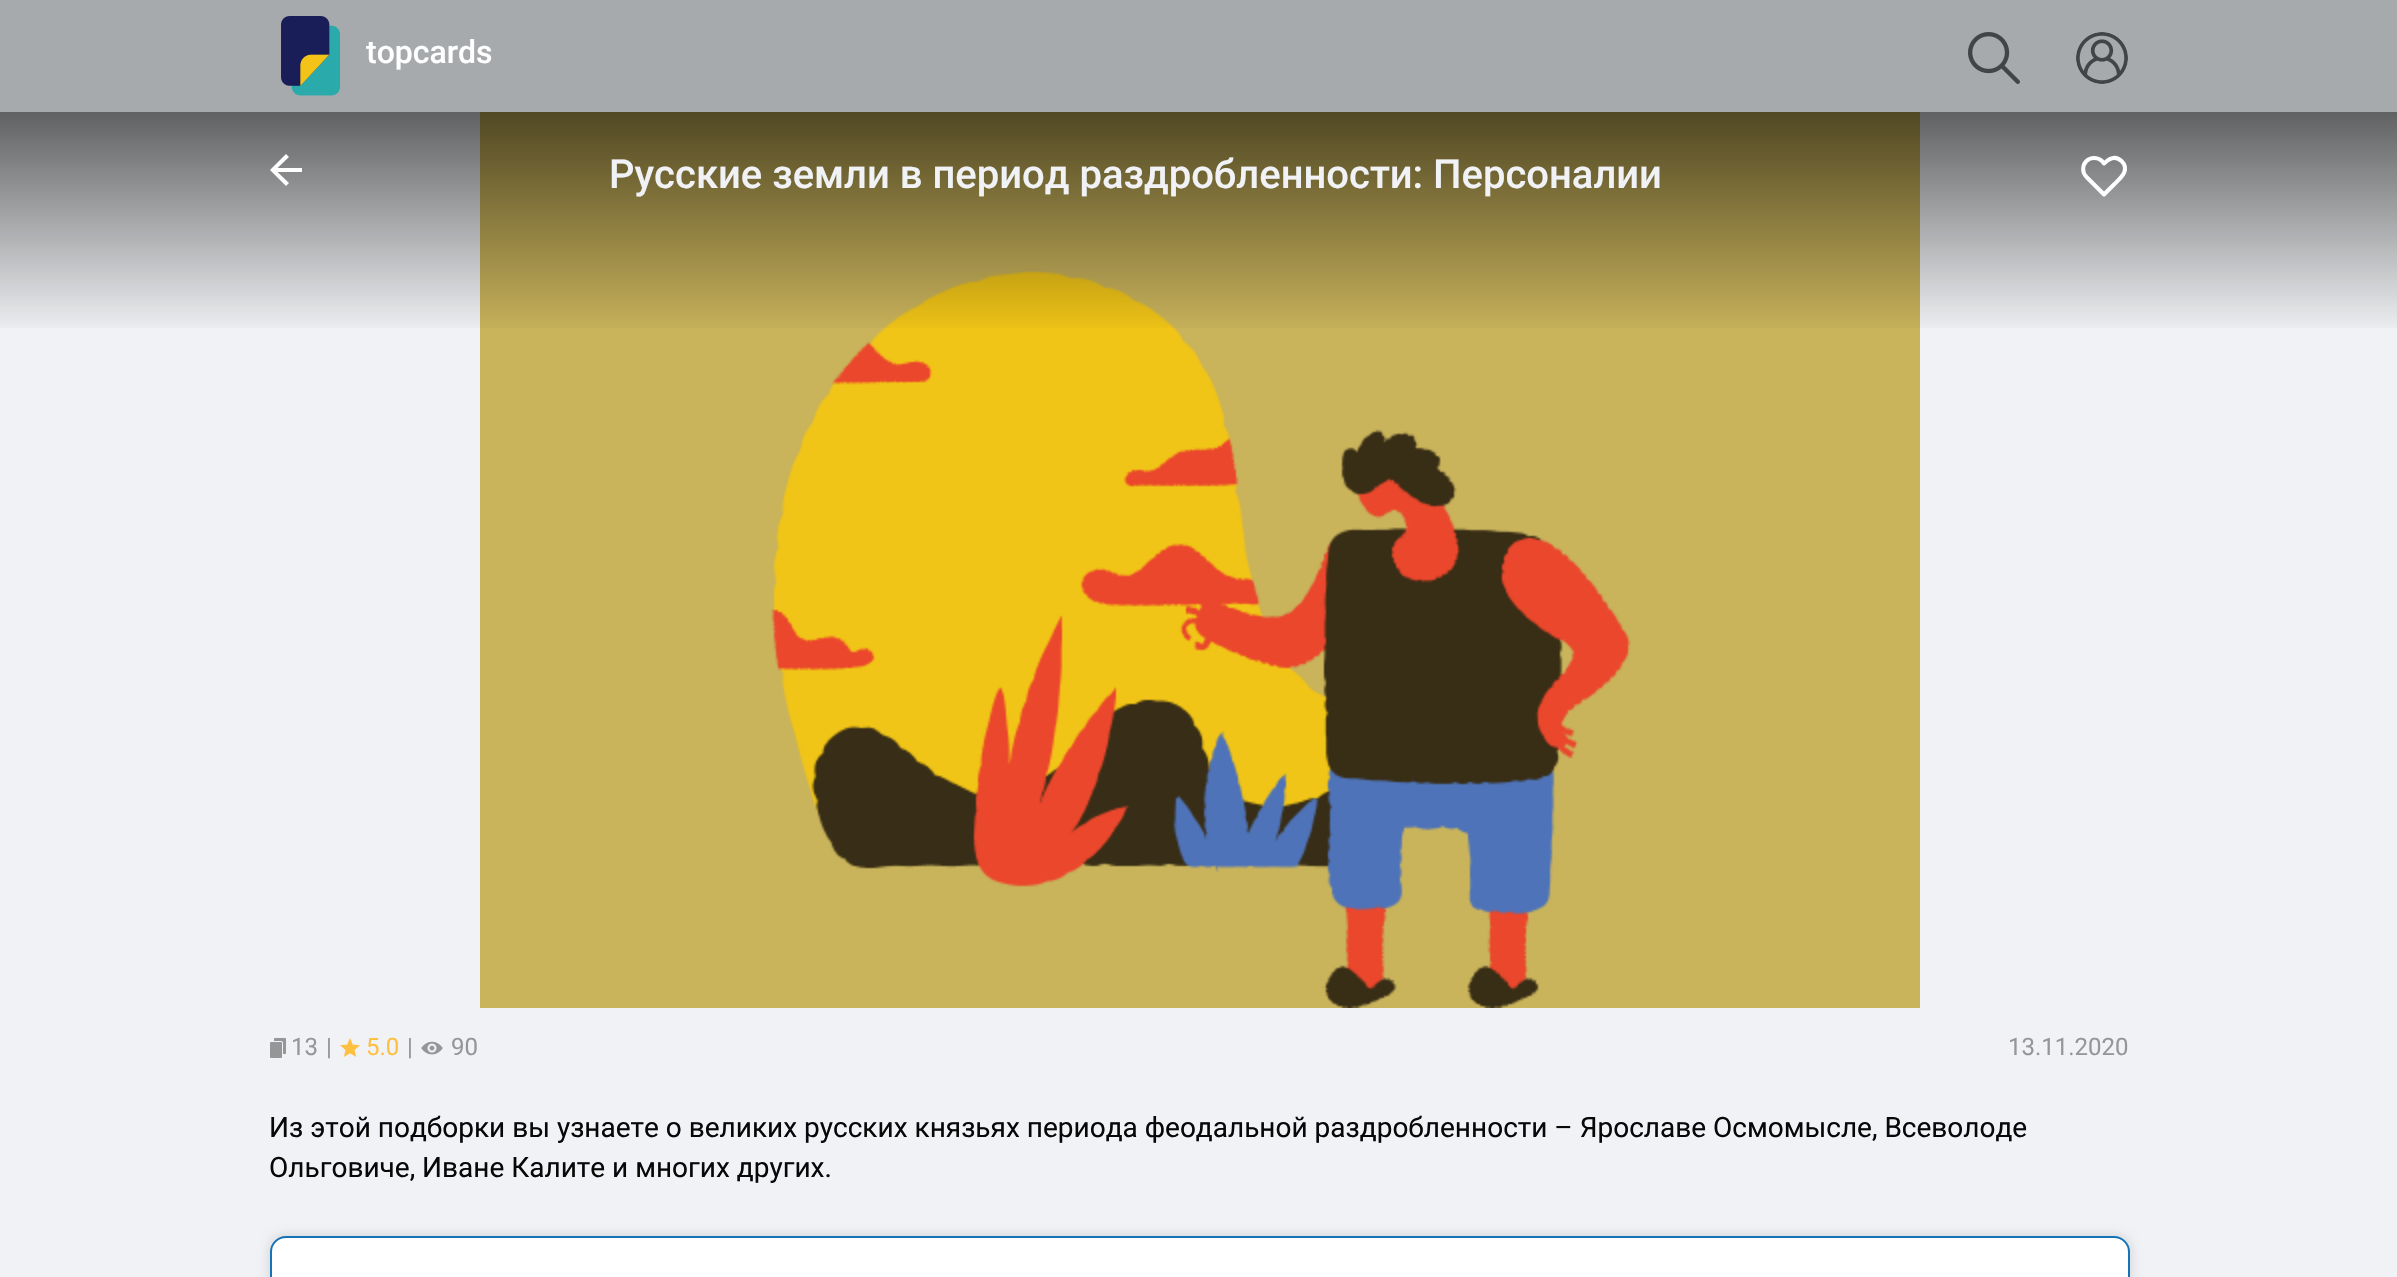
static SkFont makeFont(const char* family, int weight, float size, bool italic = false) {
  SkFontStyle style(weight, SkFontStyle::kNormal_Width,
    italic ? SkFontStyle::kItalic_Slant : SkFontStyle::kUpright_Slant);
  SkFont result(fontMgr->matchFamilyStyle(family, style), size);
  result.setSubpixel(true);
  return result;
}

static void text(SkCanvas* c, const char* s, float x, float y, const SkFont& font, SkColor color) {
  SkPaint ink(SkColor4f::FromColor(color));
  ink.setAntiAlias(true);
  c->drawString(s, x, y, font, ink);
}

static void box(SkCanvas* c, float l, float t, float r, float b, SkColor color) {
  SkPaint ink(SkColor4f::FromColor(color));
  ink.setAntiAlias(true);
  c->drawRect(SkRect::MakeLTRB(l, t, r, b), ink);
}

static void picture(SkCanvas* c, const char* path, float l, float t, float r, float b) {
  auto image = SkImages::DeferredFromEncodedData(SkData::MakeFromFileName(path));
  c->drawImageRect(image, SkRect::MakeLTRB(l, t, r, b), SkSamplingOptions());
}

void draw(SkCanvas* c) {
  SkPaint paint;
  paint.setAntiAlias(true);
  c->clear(0xfff0f2f5);
  box(c, 0, 0, 2397, 112, 0xffa7aaad);
  picture(c, "img_01.png", 281, 16, 341, 96);
  SkFont face1 = makeFont("Roboto", 500, 32);
  text(c, "topcards", 366, 63, face1, 0xffffffff);
  picture(c, "img_02.png", 1968, 32, 2020, 84);
  picture(c, "img_03.png", 2076, 32, 2128, 84);
  picture(c, "img_04.png", 480, 112, 1920, 1008);
  {
    const SkColor colors[] = {0x99000000, 0x00000000};
    const float stops[] = {0, 0.25f};
    const SkPoint ends[] = {{1199, 112}, {1199, 1008}};
    paint.setShader(SkGradientShader::MakeLinear(ends, colors, stops, 2, SkTileMode::kClamp));
    paint.setAlpha(255);
  }
  c->drawRect(SkRect::MakeLTRB(0, 112, 2397, 328), paint);
  paint.setShader(nullptr);
  paint.setColor(0xffffffff);
  c->drawPath(SkPathBuilder().moveTo(302, 168).lineTo(277.5f, 168).lineTo(289, 157).lineTo(286, 154).lineTo(270, 170).lineTo(286, 186).lineTo(289, 183).lineTo(277.5f, 172).lineTo(302, 172).close().detach(), paint);
  SkFont face2 = makeFont("Roboto", 500, 40);
  text(c, "Русские земли в период раздробленности: Персоналии", 609, 188, face2, 0xfff0f2f5);
  paint.setStyle(SkPaint::kStroke_Style);
  paint.setStrokeWidth(4);
  paint.setStrokeCap(SkPaint::kRound_Cap);
  paint.setStrokeJoin(SkPaint::kRound_Join);
  c->drawPath(SkPathBuilder().moveTo(2121.5f, 161).cubicTo(2115.5f, 155, 2109, 158.5f, 2104, 163.5f).lineTo(2102, 161).cubicTo(2097.5f, 157, 2090.5f, 157, 2086.5f, 161).cubicTo(2082, 165.5f, 2082, 172.5f, 2086.5f, 177).lineTo(2104, 194.5f).lineTo(2114.5f, 184).cubicTo(2120.5f, 178, 2130.5f, 170, 2121.5f, 161).close().detach(), paint);
  picture(c, "img_05.png", 270, 1038, 286, 1058);
  SkFont face3 = makeFont("Roboto", 400, 24);
  text(c, "13", 291, 1055, face3, 0xff959698);
  text(c, "|", 326, 1055, face3, 0xff959698);
  picture(c, "img_06.png", 340, 1038, 360, 1057);
  text(c, "5.0", 366, 1055, face3, 0xffffbf3f);
  text(c, "|", 407, 1055, face3, 0xff959698);
  picture(c, "img_07.png", 421, 1041, 443, 1055);
  text(c, "90", 451, 1055, face3, 0xff959698);
  text(c, "13.11.2020", 2008, 1055, face3, 0xff959698);
  SkFont face4 = makeFont("Roboto", 400, 28);
  text(c, "Из этой подборки вы узнаете о великих русских князьях периода феодальной раздробленности – Ярославе Осмомысле, Всеволоде", 269, 1137, face4, 0xff080809);
  text(c, "Ольговиче, Иване Калите и многих других.", 269, 1177, face4, 0xff080809);
  paint.setStyle(SkPaint::kFill_Style);
  paint.setColor(0x1a000000);
  paint.setMaskFilter(SkMaskFilter::MakeBlur(kNormal_SkBlurStyle, 5));
  c->drawRoundRect(SkRect::MakeLTRB(268, 1234, 2132, 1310), 18, 18, paint);
  paint.setMaskFilter(nullptr);
  paint.setColor(0xffffffff);
  c->drawRoundRect(SkRect::MakeLTRB(271, 1237, 2129, 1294), 15, 15, paint);
  paint.setStyle(SkPaint::kStroke_Style);
  paint.setStrokeWidth(2);
  paint.setStrokeCap(SkPaint::kButt_Cap);
  paint.setStrokeJoin(SkPaint::kMiter_Join);
  paint.setColor(0xff1673b5);
  c->drawRoundRect(SkRect::MakeLTRB(271, 1237, 2129, 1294), 15, 15, paint);
}
